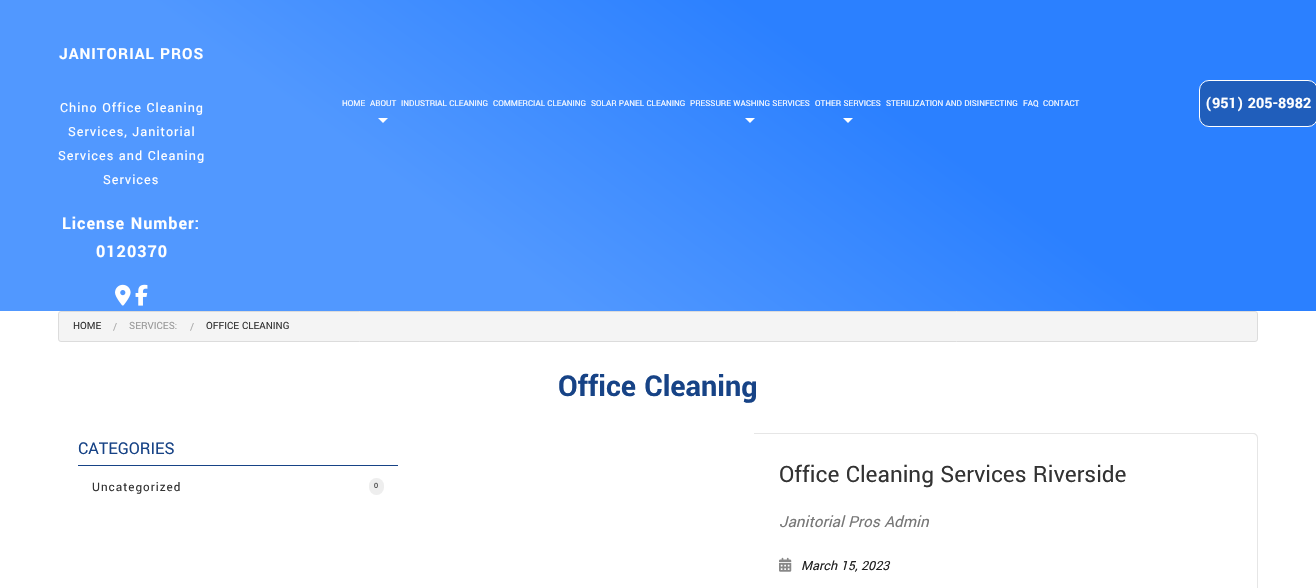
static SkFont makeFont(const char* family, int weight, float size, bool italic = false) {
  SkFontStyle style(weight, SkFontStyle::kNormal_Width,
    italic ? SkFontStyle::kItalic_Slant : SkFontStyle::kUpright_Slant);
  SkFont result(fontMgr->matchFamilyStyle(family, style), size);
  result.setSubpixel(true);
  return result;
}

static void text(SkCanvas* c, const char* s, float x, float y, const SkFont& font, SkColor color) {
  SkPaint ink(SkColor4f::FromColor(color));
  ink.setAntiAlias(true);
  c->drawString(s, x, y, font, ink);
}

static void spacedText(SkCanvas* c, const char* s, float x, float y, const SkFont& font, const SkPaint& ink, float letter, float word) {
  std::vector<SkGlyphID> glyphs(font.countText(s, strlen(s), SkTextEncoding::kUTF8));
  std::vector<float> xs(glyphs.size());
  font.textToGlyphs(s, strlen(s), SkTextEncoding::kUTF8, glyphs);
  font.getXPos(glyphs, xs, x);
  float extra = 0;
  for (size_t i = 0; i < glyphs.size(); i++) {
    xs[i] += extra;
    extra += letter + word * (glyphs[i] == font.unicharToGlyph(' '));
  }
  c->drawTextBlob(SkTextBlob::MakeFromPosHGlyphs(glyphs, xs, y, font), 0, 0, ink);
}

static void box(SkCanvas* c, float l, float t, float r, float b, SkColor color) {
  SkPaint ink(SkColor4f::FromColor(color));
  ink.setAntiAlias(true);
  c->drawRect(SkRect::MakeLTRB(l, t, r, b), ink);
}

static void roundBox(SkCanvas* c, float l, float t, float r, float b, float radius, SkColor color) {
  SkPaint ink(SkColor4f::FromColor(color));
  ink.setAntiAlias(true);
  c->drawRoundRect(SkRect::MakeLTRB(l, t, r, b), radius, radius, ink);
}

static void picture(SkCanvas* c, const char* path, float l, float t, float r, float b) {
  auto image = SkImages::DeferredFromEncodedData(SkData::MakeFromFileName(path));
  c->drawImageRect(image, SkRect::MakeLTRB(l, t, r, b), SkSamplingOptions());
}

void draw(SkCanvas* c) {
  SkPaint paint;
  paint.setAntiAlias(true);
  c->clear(0xffffffff);
  {
    const SkColor colors[] = {0xff5198ff, 0xff5198ff, 0xff2b80ff, 0xff2b80ff};
    const float stops[] = {0, 0.33f, 0.67f, 1};
    const SkPoint ends[] = {{357, 570}, {959, -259}};
    paint.setShader(SkGradientShader::MakeLinear(ends, colors, stops, 4, SkTileMode::kClamp));
    paint.setAlpha(255);
  }
  c->drawRect(SkRect::MakeLTRB(0, 0, 1316, 311), paint);
  SkFont face1 = makeFont("Yantramanav", 700, 17);
  paint.setShader(nullptr);
  paint.setColor(0xffffffff);
  spacedText(c, "JANITORIAL PROS", 59, 59, face1, paint, 1, 0);
  SkFont face2 = makeFont("Yantramanav", 400, 14);
  spacedText(c, "Chino Office Cleaning", 60, 112, face2, paint, 1, 0);
  spacedText(c, "Services, Janitorial", 68, 136, face2, paint, 1, 0);
  spacedText(c, "Services and Cleaning", 58, 160, face2, paint, 1, 0);
  spacedText(c, "Services", 103, 184, face2, paint, 1, 0);
  SkFont face3 = makeFont("Yantramanav", 700, 18);
  spacedText(c, "License Number:", 62, 229, face3, paint, 1, 0);
  spacedText(c, "0120370", 96, 257, face3, paint, 1, 0);
  picture(c, "img_01.png", 115, 284, 131, 306);
  picture(c, "img_02.png", 135, 284, 148, 306);
  SkFont face4 = makeFont("Yantramanav", 400, 9);
  text(c, "HOME", 342, 106, face4, 0xffffffff);
  text(c, "ABOUT", 370, 106, face4, 0xffffffff);
  c->drawPath(SkPathBuilder().moveTo(378, 118).lineTo(388, 118).lineTo(383, 123).close().detach(), paint);
  text(c, "INDUSTRIAL CLEANING", 401, 106, face4, 0xffffffff);
  text(c, "COMMERCIAL CLEANING", 493, 106, face4, 0xffffffff);
  text(c, "SOLAR PANEL CLEANING", 591, 106, face4, 0xffffffff);
  text(c, "PRESSURE WASHING SERVICES", 690, 106, face4, 0xffffffff);
  c->drawPath(SkPathBuilder().moveTo(745, 118).lineTo(755, 118).lineTo(750, 123).close().detach(), paint);
  text(c, "OTHER SERVICES", 815, 106, face4, 0xffffffff);
  c->drawPath(SkPathBuilder().moveTo(843, 118).lineTo(853, 118).lineTo(848, 123).close().detach(), paint);
  text(c, "STERILIZATION AND DISINFECTING", 886, 106, face4, 0xffffffff);
  text(c, "FAQ", 1023, 106, face4, 0xffffffff);
  text(c, "CONTACT", 1043, 106, face4, 0xffffffff);
  paint.setColor(0xff205ebb);
  c->drawRoundRect(SkRect::MakeLTRB(1199.5f, 80.5f, 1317.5f, 126.5f), 9.5f, 9.5f, paint);
  paint.setStyle(SkPaint::kStroke_Style);
  paint.setStrokeWidth(1);
  paint.setColor(0xffffffff);
  c->drawRoundRect(SkRect::MakeLTRB(1199.5f, 80.5f, 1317.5f, 126.5f), 9.5f, 9.5f, paint);
  SkFont face5 = makeFont("Yantramanav", 700, 16);
  text(c, "(951) 205-8982", 1205, 108, face5, 0xffffffff);
  paint.setStyle(SkPaint::kFill_Style);
  paint.setColor(0xfff4f4f4);
  c->drawRoundRect(SkRect::MakeLTRB(58.5f, 311.5f, 1257.5f, 341.5f), 2.5f, 2.5f, paint);
  paint.setStyle(SkPaint::kStroke_Style);
  paint.setColor(0xffdcdcdc);
  c->drawRoundRect(SkRect::MakeLTRB(58.5f, 311.5f, 1257.5f, 341.5f), 2.5f, 2.5f, paint);
  SkFont face6 = makeFont("Yantramanav", 400, 11);
  text(c, "HOME", 73, 329, face6, 0xff333333);
  text(c, "/", 113, 330, face6, 0xffaaaaaa);
  text(c, "SERVICES:", 129, 329, face6, 0xff999999);
  text(c, "/", 190, 330, face6, 0xffaaaaaa);
  text(c, "OFFICE CLEANING", 206, 329, face6, 0xff333333);
  SkFont face7 = makeFont("Yantramanav", 700, 32);
  text(c, "Office Cleaning", 558, 396, face7, 0xff174386);
  box(c, 78, 465, 398, 466, 0xff174386);
  SkFont face8 = makeFont("Yantramanav", 400, 18);
  text(c, "CATEGORIES", 78, 454, face8, 0xff174386);
  SkFont face9 = makeFont("Yantramanav", 400, 13);
  paint.setStyle(SkPaint::kFill_Style);
  paint.setColor(0xff333333);
  spacedText(c, "Uncategorized", 92, 491, face9, paint, 1, 0);
  roundBox(c, 369, 478, 384, 495, 7.5f, 0xffeeeeee);
  SkFont face10 = makeFont("Yantramanav", 400, 8);
  spacedText(c, "0", 374, 488, face10, paint, 1, 0);
  paint.setColor(0xffe6e6e6);
  c->drawPath(SkPathBuilder(SkPathFillType::kEvenOdd).moveTo(754, 433).lineTo(1253, 433).cubicTo(1256, 433, 1258, 435, 1258, 438).lineTo(1258, 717).cubicTo(1258, 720, 1256, 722, 1253, 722).lineTo(754, 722).close().moveTo(754, 434).lineTo(1253, 434).cubicTo(1255, 434, 1257, 436, 1257, 438).lineTo(1257, 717).cubicTo(1257, 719, 1255, 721, 1253, 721).lineTo(754, 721).close().detach(), paint);
  SkFont face11 = makeFont("Yantramanav", 400, 25);
  text(c, "Office Cleaning Services Riverside", 779, 482, face11, 0xff333333);
  SkFont face12 = makeFont("Yantramanav", 400, 17, true);
  text(c, "Janitorial Pros Admin", 779, 527, face12, 0xff777777);
  picture(c, "img_03.png", 779, 557, 792, 572);
  SkFont face13 = makeFont("Yantramanav", 400, 14, true);
  text(c, "March 15, 2023", 801, 570, face13, 0xff222222);
}
